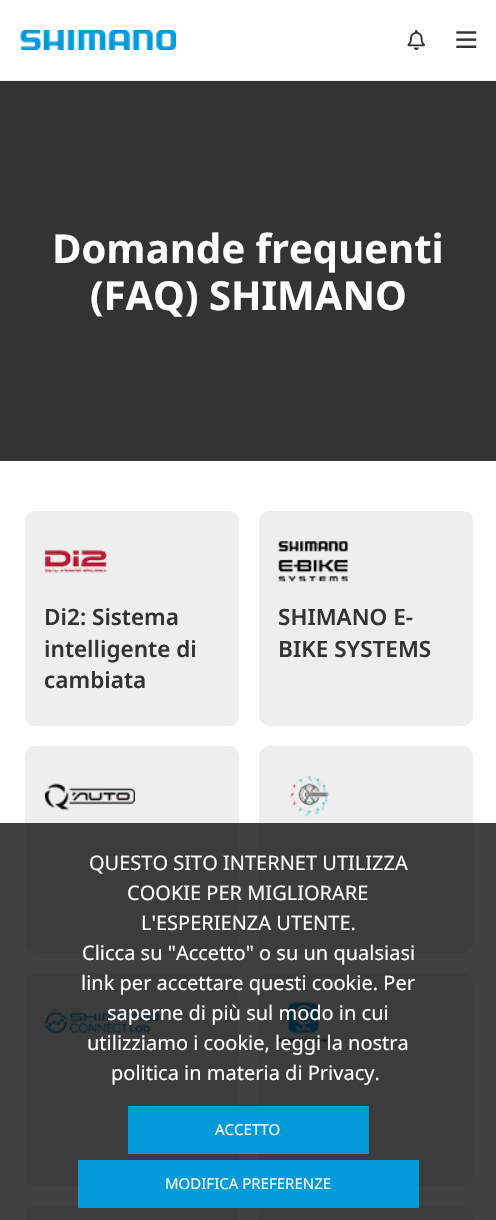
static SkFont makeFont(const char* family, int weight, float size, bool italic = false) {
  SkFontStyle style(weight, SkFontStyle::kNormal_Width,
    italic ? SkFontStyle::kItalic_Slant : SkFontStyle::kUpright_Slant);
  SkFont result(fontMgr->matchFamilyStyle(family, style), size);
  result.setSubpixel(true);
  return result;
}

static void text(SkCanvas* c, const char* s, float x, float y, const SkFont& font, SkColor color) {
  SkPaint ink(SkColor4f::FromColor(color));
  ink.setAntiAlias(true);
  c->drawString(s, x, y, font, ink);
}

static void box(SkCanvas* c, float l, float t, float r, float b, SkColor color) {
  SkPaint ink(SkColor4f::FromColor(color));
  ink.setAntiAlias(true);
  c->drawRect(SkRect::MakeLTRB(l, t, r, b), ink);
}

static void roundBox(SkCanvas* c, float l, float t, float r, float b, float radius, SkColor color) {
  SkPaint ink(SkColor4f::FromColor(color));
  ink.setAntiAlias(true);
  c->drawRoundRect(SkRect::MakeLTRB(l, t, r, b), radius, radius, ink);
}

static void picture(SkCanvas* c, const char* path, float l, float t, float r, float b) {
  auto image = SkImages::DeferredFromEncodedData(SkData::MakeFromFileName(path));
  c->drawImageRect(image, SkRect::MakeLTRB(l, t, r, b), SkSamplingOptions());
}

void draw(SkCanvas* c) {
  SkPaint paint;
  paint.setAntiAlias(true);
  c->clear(0xffffffff);
  box(c, 0, 80, 496, 81, 0xffeeeeee);
  picture(c, "img_01.png", 20, 30, 176, 50);
  picture(c, "img_02.png", 407, 30, 425, 50);
  picture(c, "img_03.png", 456, 31, 477, 48);
  box(c, 0, 81, 496, 461, 0xff333333);
  SkFont face1 = makeFont("Noto Sans", 700, 40);
  text(c, "Domande frequenti", 52, 263, face1, 0xffffffff);
  text(c, "(FAQ) SHIMANO", 90, 310, face1, 0xffffffff);
  roundBox(c, 25, 511, 239, 726, 10, 0xffeeeeee);
  picture(c, "img_04.png", 45, 549, 107, 573);
  SkFont face2 = makeFont("Noto Sans", 600, 22.5f);
  text(c, "Di2: Sistema", 44, 625, face2, 0xff333333);
  text(c, "intelligente di", 44, 657, face2, 0xff333333);
  text(c, "cambiata", 44, 688, face2, 0xff333333);
  roundBox(c, 259, 511, 473, 726, 10, 0xffeeeeee);
  picture(c, "img_05.png", 278, 541, 348, 582);
  text(c, "SHIMANO E-", 278, 625, face2, 0xff333333);
  text(c, "BIKE SYSTEMS", 278, 657, face2, 0xff333333);
  roundBox(c, 25, 746, 239, 953, 10, 0xffeeeeee);
  picture(c, "img_06.png", 45, 783, 135, 811);
  roundBox(c, 259, 746, 473, 953, 10, 0xffeeeeee);
  picture(c, "img_07.png", 290, 776, 329, 817);
  roundBox(c, 25, 973, 239, 1186, 10, 0xffeeeeee);
  picture(c, "img_08.png", 45, 1011, 159, 1034);
  roundBox(c, 259, 973, 473, 1186, 10, 0xffeeeeee);
  picture(c, "img_09.png", 278, 1002, 328, 1043);
  roundBox(c, 25, 1206, 239, 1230, 10, 0xffeeeeee);
  roundBox(c, 259, 1206, 473, 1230, 10, 0xffeeeeee);
  box(c, 0, 823, 496, 1220, 0xbf000000);
  SkFont face3 = makeFont("Noto Sans", 400, 20);
  text(c, "QUESTO SITO INTERNET UTILIZZA", 89, 870, face3, 0xffffffff);
  text(c, "COOKIE PER MIGLIORARE", 127, 900, face3, 0xffffffff);
  text(c, "L'ESPERIENZA UTENTE.", 141, 930, face3, 0xffffffff);
  text(c, "Clicca su \"Accetto\" o su un qualsiasi", 82, 960, face3, 0xffffffff);
  text(c, "link per accettare questi cookie. Per", 81, 990, face3, 0xffffffff);
  text(c, "saperne di più sul modo in cui", 107, 1020, face3, 0xffffffff);
  text(c, "utilizziamo i cookie, leggi la nostra", 87, 1050, face3, 0xffffffff);
  text(c, "politica in materia di Privacy.", 111, 1080, face3, 0xffffffff);
  box(c, 128, 1106, 369, 1154, 0xff009ad9);
  SkFont face4 = makeFont("Noto Sans", 400, 15);
  text(c, "ACCETTO", 215, 1135, face4, 0xffffffff);
  box(c, 78, 1160, 419, 1208, 0xff009ad9);
  text(c, "MODIFICA PREFERENZE", 165, 1189, face4, 0xffffffff);
}
